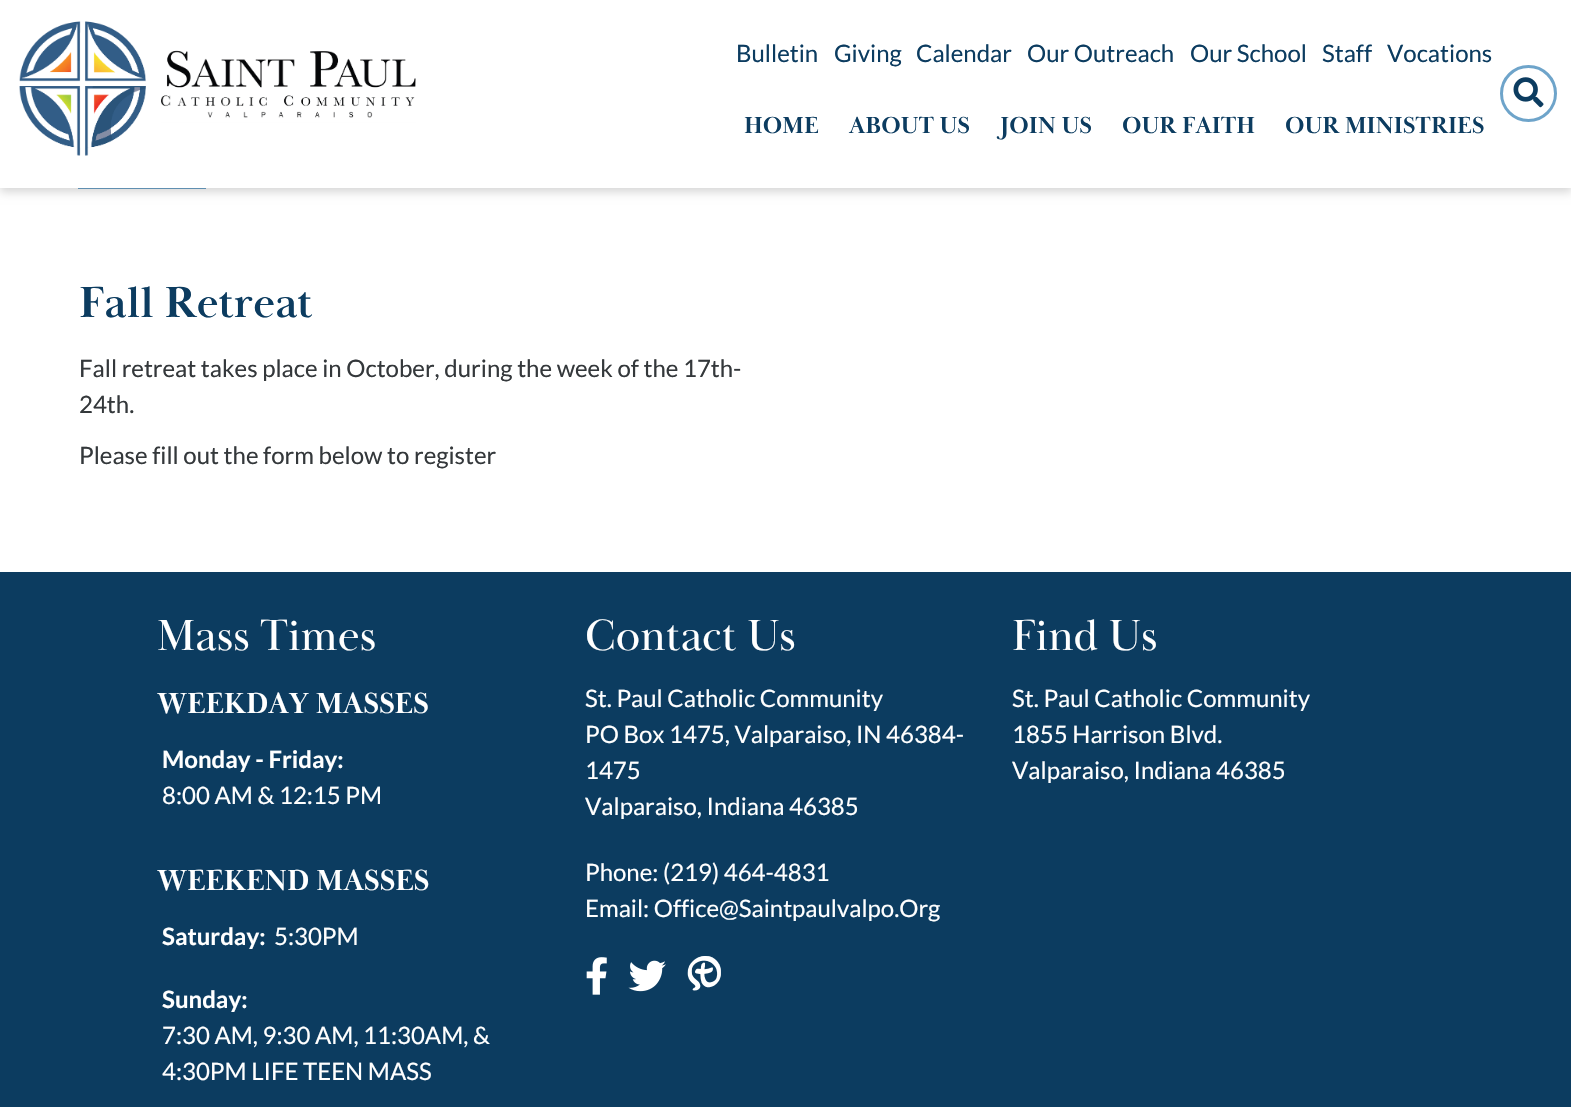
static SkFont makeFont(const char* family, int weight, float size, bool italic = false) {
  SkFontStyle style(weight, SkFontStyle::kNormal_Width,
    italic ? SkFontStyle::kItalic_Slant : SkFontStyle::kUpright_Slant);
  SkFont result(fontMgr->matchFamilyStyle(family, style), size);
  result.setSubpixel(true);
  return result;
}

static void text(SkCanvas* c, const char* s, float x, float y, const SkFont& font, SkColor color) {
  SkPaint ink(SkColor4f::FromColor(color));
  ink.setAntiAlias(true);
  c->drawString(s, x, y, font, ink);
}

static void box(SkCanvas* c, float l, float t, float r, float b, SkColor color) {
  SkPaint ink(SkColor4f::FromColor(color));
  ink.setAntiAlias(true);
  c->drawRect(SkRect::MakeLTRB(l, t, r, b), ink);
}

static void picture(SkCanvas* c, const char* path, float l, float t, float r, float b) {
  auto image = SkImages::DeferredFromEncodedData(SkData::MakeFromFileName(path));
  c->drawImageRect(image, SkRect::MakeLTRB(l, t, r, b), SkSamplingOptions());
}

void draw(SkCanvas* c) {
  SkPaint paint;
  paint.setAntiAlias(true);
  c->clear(0xffffffff);
  box(c, 78, 188, 206, 189, 0xff6ea4ca);
  paint.setColor(0x29000000);
  paint.setMaskFilter(SkMaskFilter::MakeBlur(kNormal_SkBlurStyle, 4.5f));
  c->drawRect(SkRect::MakeLTRB(0, 5, 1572, 192), paint);
  paint.setMaskFilter(nullptr);
  box(c, 0, 0, 1571, 188, 0xffffffff);
  picture(c, "img_01.png", 19, 21, 416, 156);
  SkFont face1 = makeFont("Lato", 400, 24);
  text(c, "Bulletin", 736, 62, face1, 0xff0c3c60);
  text(c, "Giving", 834, 62, face1, 0xff0c3c60);
  text(c, "Calendar", 916, 62, face1, 0xff0c3c60);
  text(c, "Our Outreach", 1027, 62, face1, 0xff0c3c60);
  text(c, "Our School", 1190, 62, face1, 0xff0c3c60);
  text(c, "Staff", 1322, 62, face1, 0xff0c3c60);
  text(c, "Vocations", 1387, 62, face1, 0xff0c3c60);
  SkFont face2 = makeFont("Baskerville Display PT", 700, 24);
  text(c, "HOME", 744, 133, face2, 0xff0c3c60);
  text(c, "ABOUT US", 849, 133, face2, 0xff0c3c60);
  text(c, "JOIN US", 1000, 133, face2, 0xff0c3c60);
  text(c, "OUR FAITH", 1122, 133, face2, 0xff0c3c60);
  text(c, "OUR MINISTRIES", 1285, 133, face2, 0xff0c3c60);
  paint.setStyle(SkPaint::kStroke_Style);
  paint.setStrokeWidth(3);
  paint.setColor(0xff6ea4ca);
  c->drawCircle(1528.5f, 93.5f, 27, paint);
  picture(c, "img_02.png", 1513, 77, 1544, 108);
  SkFont face3 = makeFont("Baskerville Display PT", 700, 45);
  text(c, "Fall Retreat", 79, 317, face3, 0xff0c3c60);
  text(c, "Fall retreat takes place in October, during the week of the 17th-", 79, 377, face1, 0xff34383b);
  text(c, "24th.", 79, 413, face1, 0xff34383b);
  text(c, "Please fill out the form below to register", 79, 464, face1, 0xff34383b);
  box(c, 0, 572, 1571, 1107, 0xff0c3c60);
  SkFont face4 = makeFont("Baskerville Display PT", 400, 45);
  text(c, "Mass Times", 157, 650, face4, 0xffffffff);
  SkFont face5 = makeFont("Baskerville Display PT", 700, 30);
  text(c, "WEEKDAY MASSES", 157, 713, face5, 0xffffffff);
  SkFont face6 = makeFont("Lato", 700, 24);
  text(c, "Monday - Friday:", 162, 768, face6, 0xffffffff);
  text(c, "8:00 AM & 12:15 PM", 162, 804, face1, 0xffffffff);
  text(c, "WEEKEND MASSES", 157, 890, face5, 0xffffffff);
  text(c, "Saturday:", 162, 945, face6, 0xffffffff);
  text(c, "5:30PM", 274, 945, face1, 0xffffffff);
  text(c, "Sunday:", 162, 1008, face6, 0xffffffff);
  text(c, "7:30 AM, 9:30 AM, 11:30AM, &", 162, 1044, face1, 0xffffffff);
  text(c, "4:30PM LIFE TEEN MASS", 162, 1080, face1, 0xffffffff);
  text(c, "Contact Us", 585, 650, face4, 0xffffffff);
  text(c, "St. Paul Catholic Community", 585, 707, face1, 0xffffffff);
  text(c, "PO Box 1475, Valparaiso, IN 46384-", 585, 743, face1, 0xffffffff);
  text(c, "1475", 585, 779, face1, 0xffffffff);
  text(c, "Valparaiso, Indiana 46385", 585, 815, face1, 0xffffffff);
  text(c, "Phone: (219) 464-4831", 585, 881, face1, 0xffffffff);
  text(c, "Email: Office@Saintpaulvalpo.Org", 585, 917, face1, 0xffffffff);
  picture(c, "img_03.png", 586, 957, 607, 995);
  picture(c, "img_04.png", 628, 960, 666, 992);
  picture(c, "img_05.png", 687, 956, 721, 991);
  text(c, "Find Us", 1012, 650, face4, 0xffffffff);
  text(c, "St. Paul Catholic Community", 1012, 707, face1, 0xffffffff);
  text(c, "1855 Harrison Blvd.", 1012, 743, face1, 0xffffffff);
  text(c, "Valparaiso, Indiana 46385", 1012, 779, face1, 0xffffffff);
}
